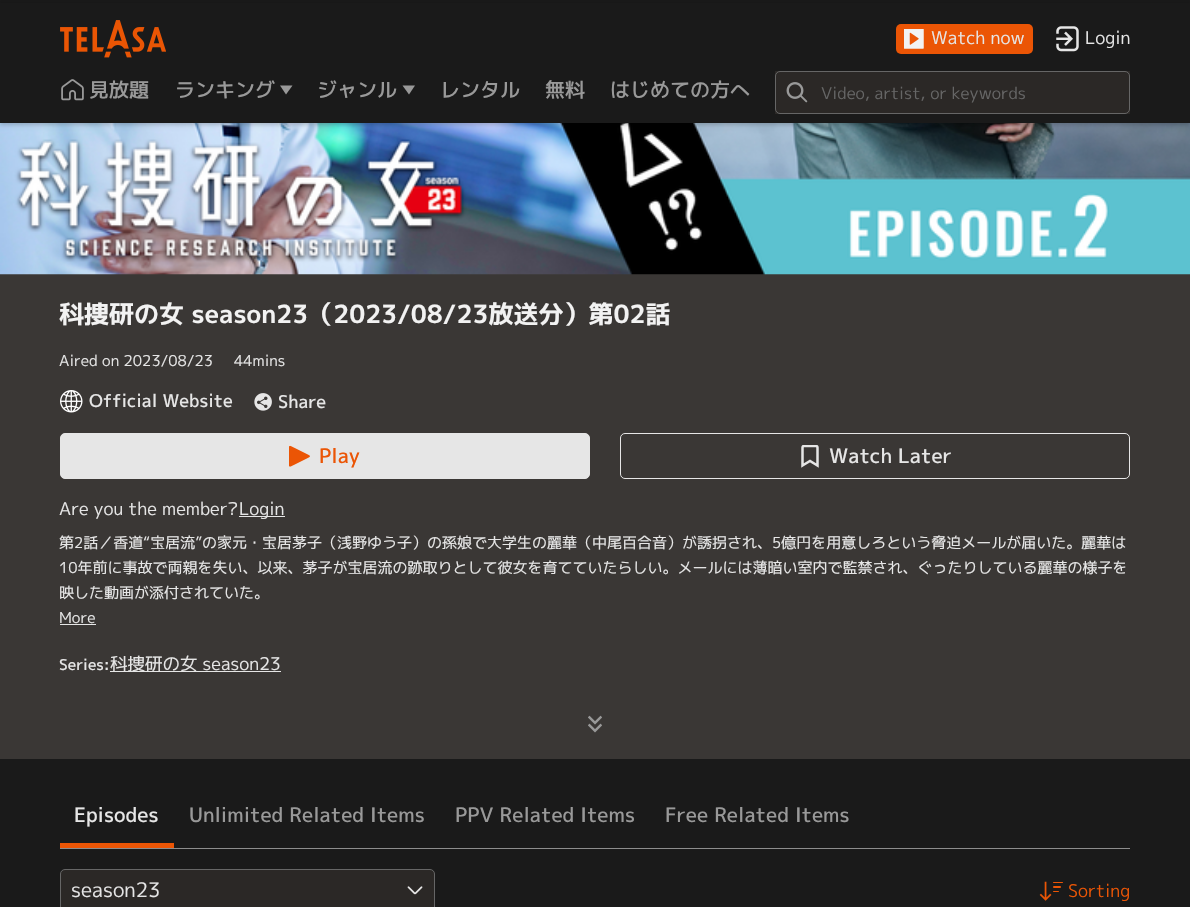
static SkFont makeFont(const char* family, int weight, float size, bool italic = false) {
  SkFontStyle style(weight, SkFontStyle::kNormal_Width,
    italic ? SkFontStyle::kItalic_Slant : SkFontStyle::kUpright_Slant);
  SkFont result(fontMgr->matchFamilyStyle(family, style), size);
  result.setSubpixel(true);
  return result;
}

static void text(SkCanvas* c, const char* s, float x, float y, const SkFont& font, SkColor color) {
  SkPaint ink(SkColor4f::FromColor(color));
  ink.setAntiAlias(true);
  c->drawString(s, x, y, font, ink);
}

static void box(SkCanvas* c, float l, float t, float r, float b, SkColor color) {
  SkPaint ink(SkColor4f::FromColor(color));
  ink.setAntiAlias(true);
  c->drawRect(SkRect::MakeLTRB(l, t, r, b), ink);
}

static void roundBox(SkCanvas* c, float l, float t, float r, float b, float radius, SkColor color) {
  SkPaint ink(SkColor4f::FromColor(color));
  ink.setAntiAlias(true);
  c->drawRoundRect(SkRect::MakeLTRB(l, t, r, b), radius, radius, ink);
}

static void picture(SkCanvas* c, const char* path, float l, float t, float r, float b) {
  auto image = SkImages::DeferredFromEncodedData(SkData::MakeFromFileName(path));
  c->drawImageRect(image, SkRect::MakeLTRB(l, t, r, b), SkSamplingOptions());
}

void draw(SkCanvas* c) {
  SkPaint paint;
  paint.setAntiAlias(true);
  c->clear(0xff1a1a1a);
  box(c, 0, 274, 1190, 759, 0xff3a3735);
  picture(c, "img_06.png", 0, 123, 1190, 275);
  paint.setColor(0x33000000);
  paint.setMaskFilter(SkMaskFilter::MakeBlur(kNormal_SkBlurStyle, 2));
  c->drawRect(SkRect::MakeLTRB(0, 3, 1190, 125), paint);
  paint.setMaskFilter(nullptr);
  box(c, 0, 3, 1190, 123, 0xff1a1a1a);
  picture(c, "img_01.png", 60, 20, 166, 58);
  roundBox(c, 896, 24, 1033, 54, 5, 0xffeb5505);
  picture(c, "img_02.png", 904, 29, 924, 49);
  SkFont face1 = makeFont("M PLUS 1p", 400, 17.5f);
  text(c, "Watch now", 931, 44, face1, 0xffe6e6e6);
  picture(c, "img_03.png", 1056, 26, 1079, 52);
  text(c, "Login", 1085, 44, face1, 0xffe6e6e6);
  picture(c, "img_04.png", 61, 79, 84, 101);
  SkFont face2 = makeFont("M PLUS 1p", 500, 20);
  text(c, "見放題", 89, 97, face2, 0xff999999);
  text(c, "ランキング", 175, 97, face2, 0xff999999);
  paint.setColor(0xff999999);
  c->drawPath(SkPathBuilder(SkPathFillType::kEvenOdd).moveTo(280, 85.5f).lineTo(286, 94.5f).lineTo(292.5f, 85.5f).close().detach(), paint);
  text(c, "ジャンル", 317, 97, face2, 0xff999999);
  c->drawPath(SkPathBuilder(SkPathFillType::kEvenOdd).moveTo(402.5f, 85.5f).lineTo(409, 94.5f).lineTo(415, 85.5f).close().detach(), paint);
  text(c, "レンタル", 440, 97, face2, 0xff999999);
  text(c, "無料", 545, 97, face2, 0xff999999);
  text(c, "はじめての方へ", 610, 97, face2, 0xff999999);
  box(c, 775, 71, 1130, 114, 0xff2b2826);
  paint.setStyle(SkPaint::kStroke_Style);
  paint.setStrokeWidth(1);
  paint.setColor(0xff666666);
  c->drawRoundRect(SkRect::MakeLTRB(775.5f, 71.5f, 1129.5f, 113.5f), 4.5f, 4.5f, paint);
  picture(c, "img_05.png", 786, 82, 808, 103);
  SkFont face3 = makeFont("M PLUS 1p", 400, 16.25f);
  text(c, "Video, artist, or keywords", 821, 99, face3, 0xff666666);
  SkFont face4 = makeFont("M PLUS 1p", 700, 25);
  text(c, "科捜研の女 season23（2023/08/23放送分）第02話", 59, 323, face4, 0xfff2f2f2);
  SkFont face5 = makeFont("M PLUS 1p", 400, 15);
  text(c, "Aired on 2023/08/23", 59, 366, face5, 0xffe6e6e6);
  text(c, "44mins", 234, 366, face5, 0xffe6e6e6);
  picture(c, "img_07.png", 60, 390, 83, 413);
  SkFont face6 = makeFont("M PLUS 1p", 500, 17.5f);
  text(c, "Official Website", 89, 407, face6, 0xffe6e6e6);
  picture(c, "img_08.png", 254, 393, 272, 411);
  text(c, "Share", 278, 408, face6, 0xffe6e6e6);
  paint.setStyle(SkPaint::kFill_Style);
  paint.setColor(0xffe6e6e6);
  c->drawRoundRect(SkRect::MakeLTRB(60.5f, 433.5f, 589.5f, 478.5f), 4.5f, 4.5f, paint);
  paint.setStyle(SkPaint::kStroke_Style);
  c->drawRoundRect(SkRect::MakeLTRB(60.5f, 433.5f, 589.5f, 478.5f), 4.5f, 4.5f, paint);
  picture(c, "img_09.png", 289, 445, 310, 467);
  text(c, "Play", 319, 463, face2, 0xffeb5505);
  c->drawRoundRect(SkRect::MakeLTRB(620.5f, 433.5f, 1129.5f, 478.5f), 4.5f, 4.5f, paint);
  c->save();
  c->clipRect(SkRect::MakeLTRB(799, 445, 821, 468));
  paint.setStrokeWidth(2.5f);
  c->drawPath(SkPathBuilder().moveTo(802.5f, 465.5f).lineTo(810, 461).lineTo(817.5f, 465.5f).lineTo(817.5f, 447.5f).cubicTo(817.5f, 447, 817, 446, 816, 446).lineTo(804, 446).cubicTo(803, 446, 802.5f, 447, 802.5f, 447.5f).close().detach(), paint);
  c->restore();
  text(c, "Watch Later", 829, 463, face2, 0xffe6e6e6);
  text(c, "Are you the member?", 59, 515, face1, 0xffe6e6e6);
  box(c, 239, 516, 285, 517, 0xffe6e6e6);
  text(c, "Login", 239, 515, face1, 0xffe6e6e6);
  text(c, "第2話／香道“宝居流”の家元・宝居茅子（浅野ゆう子）の孫娘で大学生の麗華（中尾百合音）が誘拐され、5億円を用意しろという脅迫メールが届いた。麗華は", 59, 548, face5, 0xffe6e6e6);
  text(c, "10年前に事故で両親を失い、以来、茅子が宝居流の跡取りとして彼女を育てていたらしい。メールには薄暗い室内で監禁され、ぐったりしている麗華の様子を", 59, 573, face5, 0xffe6e6e6);
  text(c, "映した動画が添付されていた。", 59, 598, face5, 0xffe6e6e6);
  text(c, "More", 59, 623, face5, 0xffe6e6e6);
  box(c, 60, 624, 96, 625, 0xffe6e6e6);
  SkFont face7 = makeFont("M PLUS 1p", 500, 15);
  text(c, "Series:", 59, 670, face7, 0xffe6e6e6);
  box(c, 110, 671, 281, 672, 0xffe6e6e6);
  text(c, "科捜研の女 season23", 110, 670, face1, 0xffe6e6e6);
  picture(c, "img_10.png", 588, 715, 602, 733);
  box(c, 60, 848, 1130, 849, 0xff8d8d8d);
  box(c, 60, 843, 174, 848, 0xffeb5505);
  text(c, "Episodes", 74, 822, face2, 0xffe6e6e6);
  text(c, "Unlimited Related Items", 189, 822, face2, 0xff999999);
  text(c, "PPV Related Items", 455, 822, face2, 0xff999999);
  text(c, "Free Related Items", 665, 822, face2, 0xff999999);
  paint.setStyle(SkPaint::kFill_Style);
  paint.setColor(0xff2b2826);
  c->drawRoundRect(SkRect::MakeLTRB(60.5f, 869.5f, 434.5f, 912.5f), 4.5f, 4.5f, paint);
  paint.setStyle(SkPaint::kStroke_Style);
  paint.setStrokeWidth(1);
  paint.setColor(0xff666666);
  c->drawRoundRect(SkRect::MakeLTRB(60.5f, 869.5f, 434.5f, 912.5f), 4.5f, 4.5f, paint);
  SkFont face8 = makeFont("M PLUS 1p", 400, 20);
  text(c, "season23", 71, 897, face8, 0xffe6e6e6);
  picture(c, "img_11.png", 407, 886, 423, 895);
  picture(c, "img_12.png", 1039, 881, 1063, 901);
  text(c, "Sorting", 1068, 897, face1, 0xffeb5505);
}
